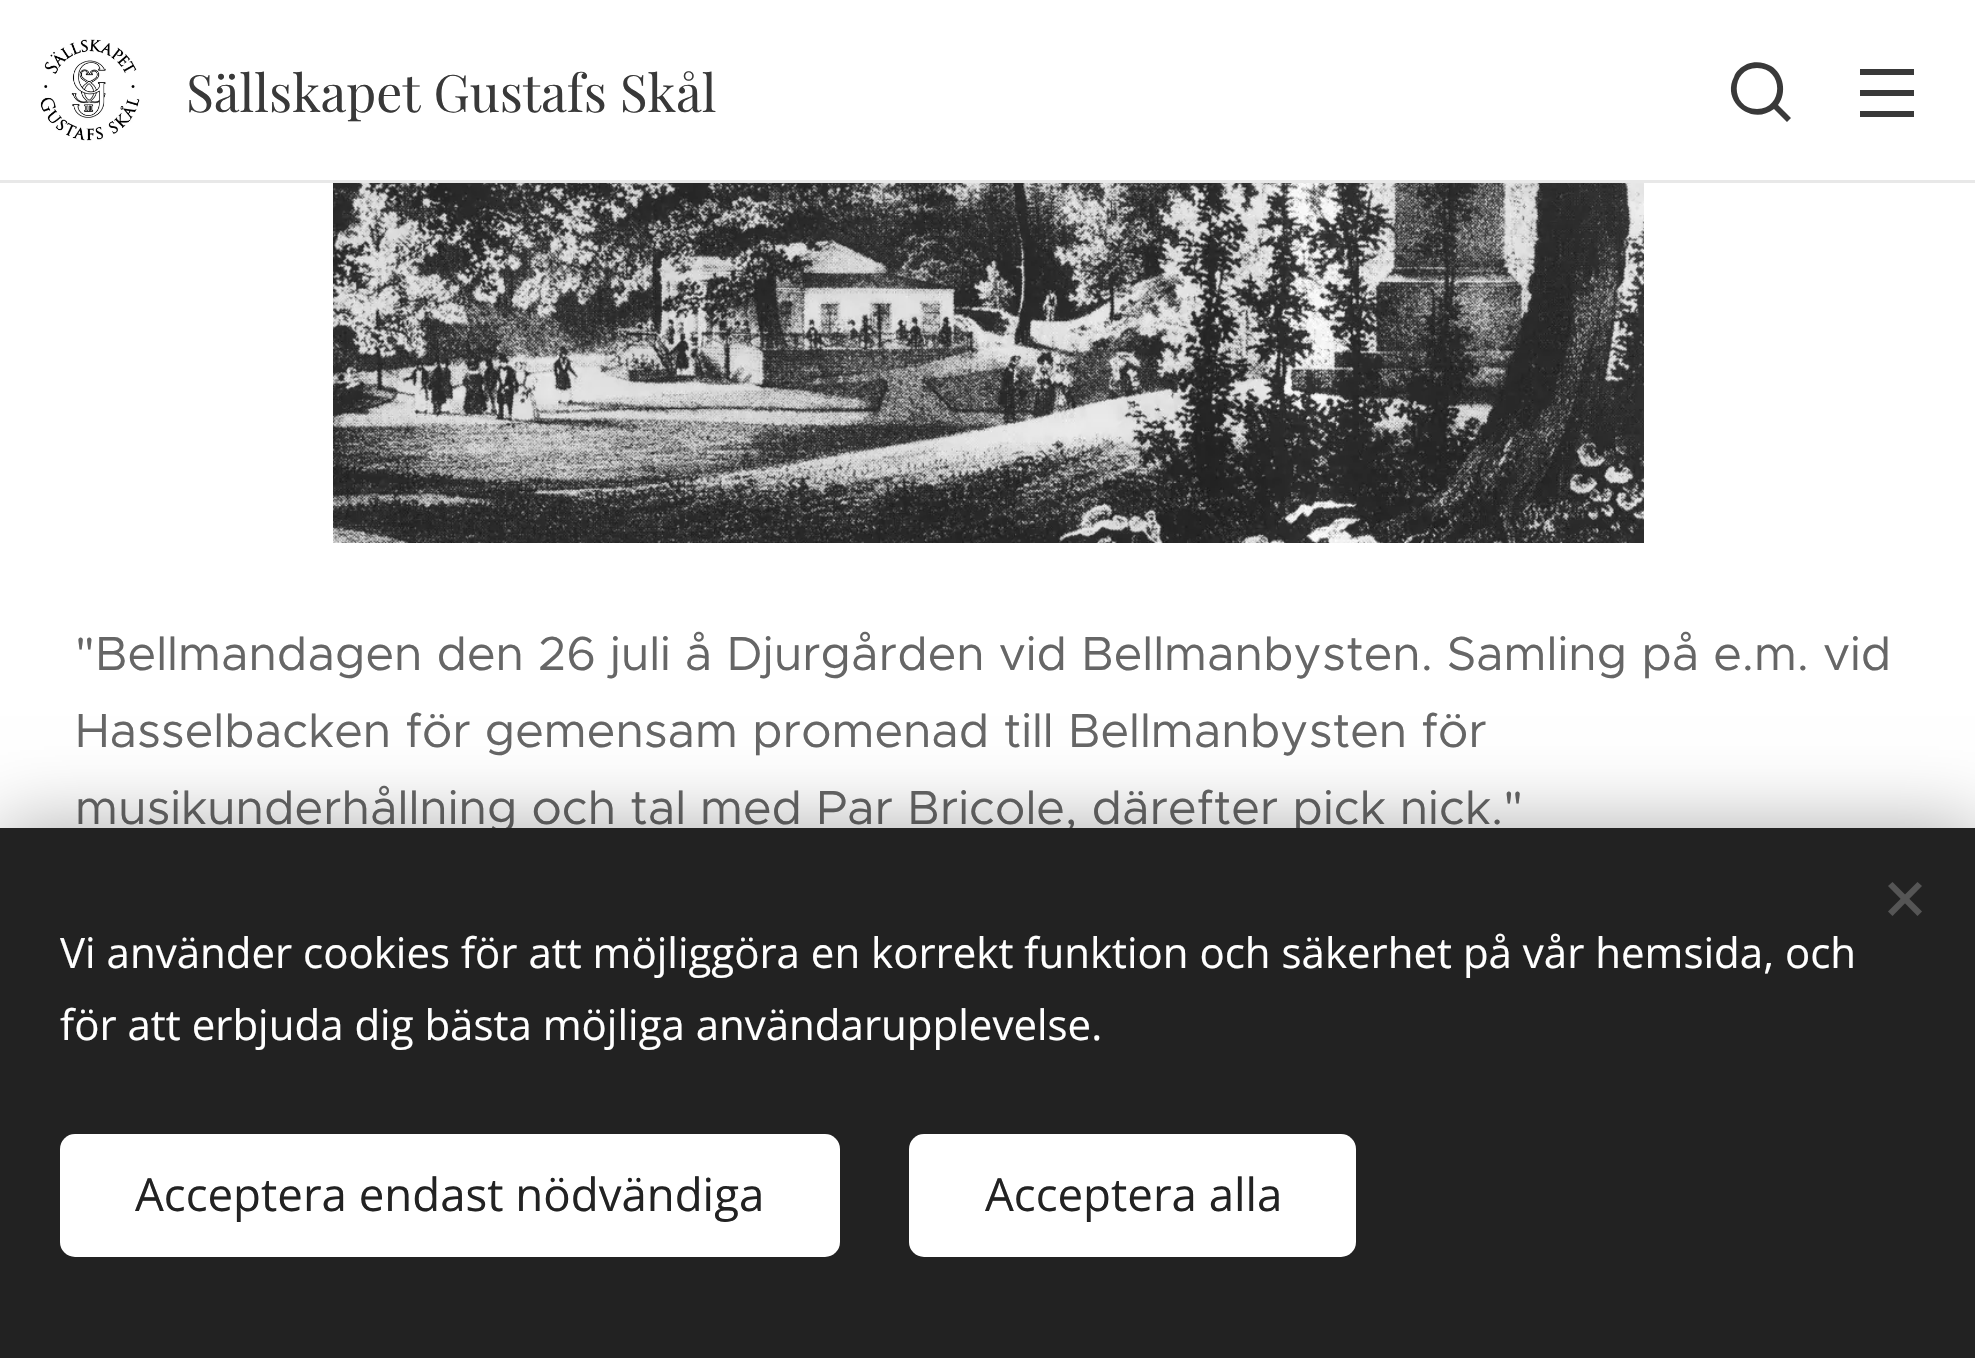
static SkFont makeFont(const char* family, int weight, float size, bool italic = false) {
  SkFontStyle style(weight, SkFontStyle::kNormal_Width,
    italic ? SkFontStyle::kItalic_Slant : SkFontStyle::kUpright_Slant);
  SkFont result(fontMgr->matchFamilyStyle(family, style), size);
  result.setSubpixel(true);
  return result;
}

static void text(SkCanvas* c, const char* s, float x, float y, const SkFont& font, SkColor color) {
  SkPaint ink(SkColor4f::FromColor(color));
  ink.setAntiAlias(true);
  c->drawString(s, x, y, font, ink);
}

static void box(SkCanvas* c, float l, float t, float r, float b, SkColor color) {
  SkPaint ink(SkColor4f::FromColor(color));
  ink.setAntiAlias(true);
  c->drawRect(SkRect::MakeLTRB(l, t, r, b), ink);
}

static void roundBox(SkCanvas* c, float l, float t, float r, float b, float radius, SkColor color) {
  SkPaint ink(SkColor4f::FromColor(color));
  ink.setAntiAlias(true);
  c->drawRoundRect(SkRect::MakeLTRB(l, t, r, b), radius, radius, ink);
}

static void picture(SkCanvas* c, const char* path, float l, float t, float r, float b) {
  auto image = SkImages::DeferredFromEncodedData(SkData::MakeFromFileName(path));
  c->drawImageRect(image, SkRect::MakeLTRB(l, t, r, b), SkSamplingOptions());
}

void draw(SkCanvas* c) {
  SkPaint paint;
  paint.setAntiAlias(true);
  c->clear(0xffffffff);
  box(c, 0, 180, 1975, 183, 0xffe8e8e8);
  picture(c, "img_01.png", 40, 39, 140, 141);
  SkFont face1 = makeFont("Playfair Display", 400, 51.6f);
  text(c, "Sällskapet Gustafs Skål", 186, 112, face1, 0xff393939);
  paint.setColor(0xff393939);
  c->drawPath(SkPathBuilder().moveTo(1791, 118).lineTo(1778, 105).cubicTo(1787, 93, 1784, 74, 1771, 66).cubicTo(1764, 62, 1755, 61, 1747, 64).cubicTo(1741, 67, 1736, 71, 1734, 77).cubicTo(1721, 102, 1752, 126, 1774, 109).lineTo(1787, 122).close().moveTo(1757, 109).cubicTo(1730, 109, 1730, 68, 1757, 68).cubicTo(1784, 68, 1784, 109, 1757, 109).close().detach(), paint);
  box(c, 1860, 90, 1914, 96, 0xff393939);
  box(c, 1860, 69, 1914, 75, 0xff393939);
  box(c, 1860, 111, 1914, 117, 0xff393939);
  picture(c, "img_02.png", 333, 183, 1644, 543);
  SkFont face2 = makeFont("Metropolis", 400, 48);
  text(c, "\"Bellmandagen den 26 juli å Djurgården vid Bellmanbysten. Samling på e.m. vid", 75, 670, face2, 0xff666666);
  text(c, "Hasselbacken för gemensam promenad till Bellmanbysten för", 75, 747, face2, 0xff666666);
  text(c, "musikunderhållning och tal med Par Bricole, därefter pick nick.\"", 75, 824, face2, 0xff666666);
  paint.setColor(0x54000000);
  paint.setMaskFilter(SkMaskFilter::MakeBlur(kNormal_SkBlurStyle, 37.5f));
  c->drawRect(SkRect::MakeLTRB(0, 828, 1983, 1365), paint);
  paint.setMaskFilter(nullptr);
  box(c, 0, 828, 1975, 1358, 0xff222222);
  paint.setColor(0xff555555);
  c->drawPath(SkPathBuilder().moveTo(1888, 911.5f).lineTo(1917.5f, 882).lineTo(1922, 886).lineTo(1892.5f, 916).close().detach(), paint);
  c->drawPath(SkPathBuilder().moveTo(1892.5f, 882).lineTo(1922, 911.5f).lineTo(1917.5f, 916).lineTo(1888, 886).close().detach(), paint);
  SkFont face3 = makeFont("Open Sans", 400, 42);
  text(c, "Vi använder cookies för att möjliggöra en korrekt funktion och säkerhet på vår hemsida, och", 60, 968, face3, 0xffffffff);
  text(c, "för att erbjuda dig bästa möjliga användarupplevelse.", 60, 1040, face3, 0xffffffff);
  roundBox(c, 60, 1134, 840, 1257, 15, 0xffffffff);
  SkFont face4 = makeFont("Open Sans", 400, 45.6f);
  text(c, "Acceptera endast nödvändiga", 135, 1211, face4, 0xff222222);
  roundBox(c, 909, 1134, 1356, 1257, 15, 0xffffffff);
  text(c, "Acceptera alla", 985, 1211, face4, 0xff222222);
}
